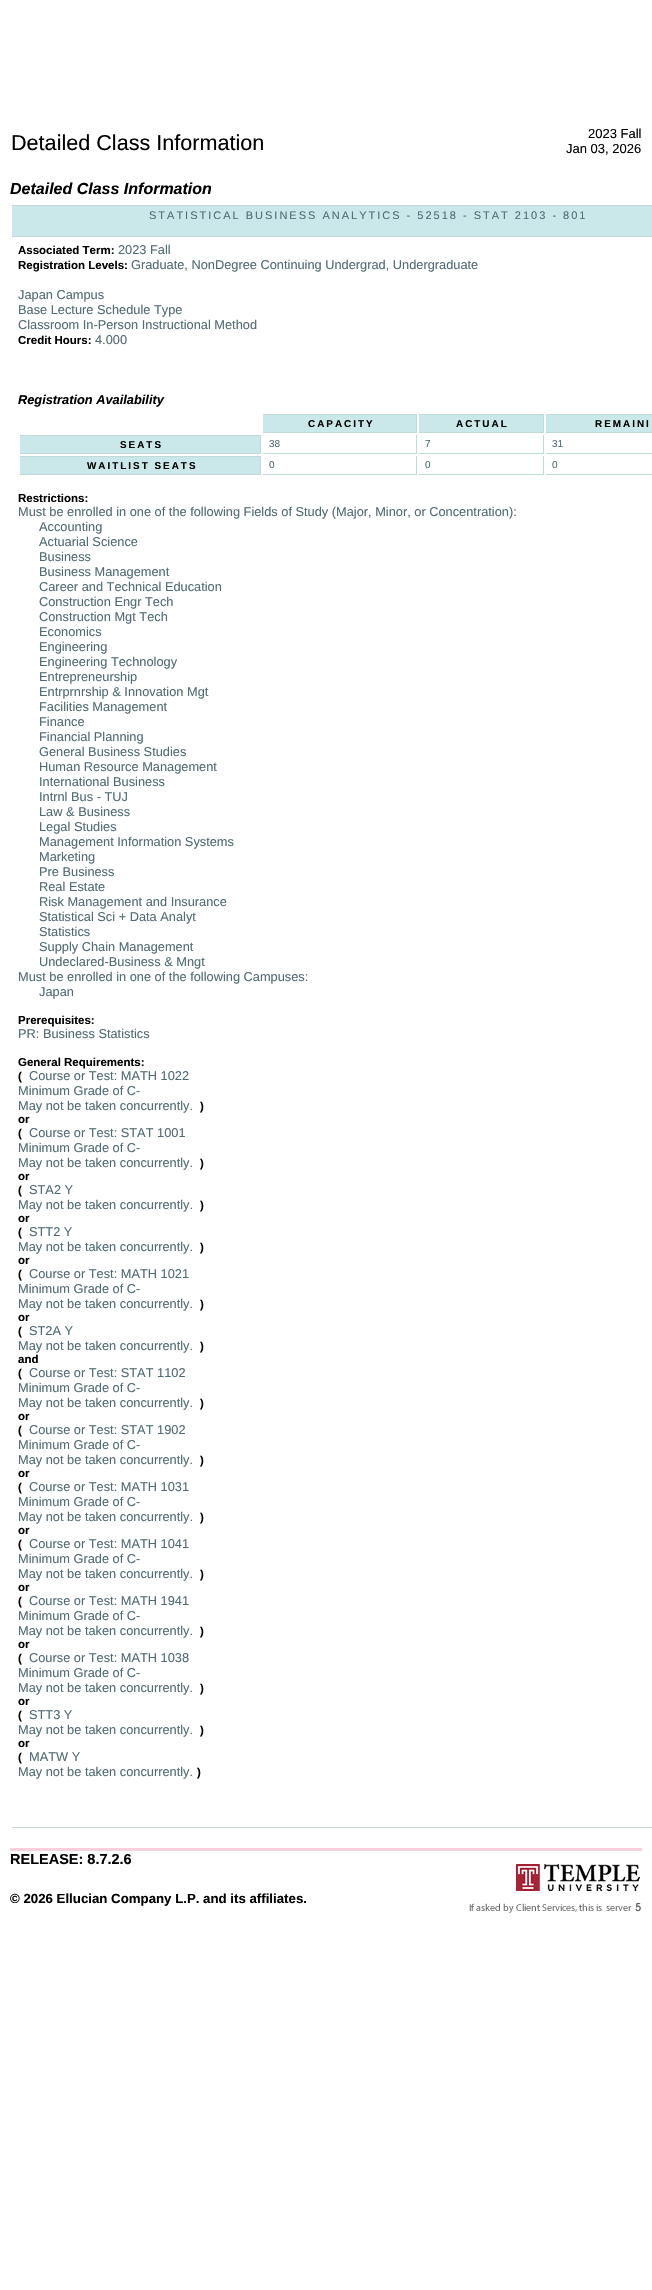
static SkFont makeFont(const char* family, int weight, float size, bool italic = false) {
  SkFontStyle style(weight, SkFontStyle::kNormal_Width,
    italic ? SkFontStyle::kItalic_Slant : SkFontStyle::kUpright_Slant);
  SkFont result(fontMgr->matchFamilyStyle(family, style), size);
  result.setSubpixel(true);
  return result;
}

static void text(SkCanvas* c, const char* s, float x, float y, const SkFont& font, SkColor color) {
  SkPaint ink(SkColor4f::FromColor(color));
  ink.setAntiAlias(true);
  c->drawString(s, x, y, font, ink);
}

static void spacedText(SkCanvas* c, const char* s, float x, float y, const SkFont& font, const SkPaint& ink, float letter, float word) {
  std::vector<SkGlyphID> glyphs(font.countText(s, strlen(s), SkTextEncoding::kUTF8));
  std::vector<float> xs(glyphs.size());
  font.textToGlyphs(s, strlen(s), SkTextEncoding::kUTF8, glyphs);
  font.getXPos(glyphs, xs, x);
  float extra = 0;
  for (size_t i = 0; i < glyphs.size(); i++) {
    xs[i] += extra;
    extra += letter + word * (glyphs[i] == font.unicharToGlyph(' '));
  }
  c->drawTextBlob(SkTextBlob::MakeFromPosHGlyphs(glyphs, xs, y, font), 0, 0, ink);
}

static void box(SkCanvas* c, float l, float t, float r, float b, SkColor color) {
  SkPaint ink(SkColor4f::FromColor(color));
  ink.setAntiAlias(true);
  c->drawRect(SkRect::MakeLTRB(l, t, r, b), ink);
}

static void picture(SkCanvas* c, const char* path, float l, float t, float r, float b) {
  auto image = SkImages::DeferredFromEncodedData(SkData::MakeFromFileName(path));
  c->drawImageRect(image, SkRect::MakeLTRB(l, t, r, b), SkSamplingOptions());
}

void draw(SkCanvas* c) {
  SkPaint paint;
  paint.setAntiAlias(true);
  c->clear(0xffffffff);
  SkFont face1 = makeFont("Liberation Sans", 400, 21.6f);
  text(c, "Detailed Class Information", 11, 150, face1, 0xff000000);
  SkFont face2 = makeFont("Liberation Sans", 400, 13);
  text(c, "2023 Fall", 588, 138, face2, 0xff000000);
  text(c, "Jan 03, 2026", 566, 153, face2, 0xff000000);
  SkFont face3 = makeFont("Liberation Sans", 700, 16, true);
  text(c, "Detailed Class Information", 10, 194, face3, 0xff000000);
  box(c, 12, 206, 652, 236, 0xffcae8ea);
  box(c, 12, 205, 652, 206, 0xffc1dad7);
  box(c, 12, 236, 652, 237, 0xffc1dad7);
  SkFont face4 = makeFont("Liberation Sans", 400, 11);
  paint.setColor(0xff4f6b72);
  spacedText(c, "STATISTICAL BUSINESS ANALYTICS - 52518 - STAT 2103 - 801", 149, 219, face4, paint, 2, 0);
  box(c, 12, 1827, 652, 1828, 0xffc1dad7);
  SkFont face5 = makeFont("Liberation Sans", 700, 11.5f);
  text(c, "Associated Term:", 18, 254, face5, 0xff000000);
  SkFont face6 = makeFont("Liberation Sans", 400, 12.8f);
  text(c, "2023 Fall", 118, 254, face6, 0xff4f6b72);
  text(c, "Registration Levels:", 18, 269, face5, 0xff000000);
  text(c, "Graduate, NonDegree Continuing Undergrad, Undergraduate", 131, 269, face6, 0xff4f6b72);
  text(c, "Japan Campus", 18, 299, face6, 0xff4f6b72);
  text(c, "Base Lecture Schedule Type", 18, 314, face6, 0xff4f6b72);
  text(c, "Classroom In-Person Instructional Method", 18, 329, face6, 0xff4f6b72);
  text(c, "Credit Hours:", 18, 344, face5, 0xff000000);
  text(c, "4.000", 95, 344, face6, 0xff4f6b72);
  SkFont face7 = makeFont("Liberation Sans", 700, 12.8f, true);
  text(c, "Registration Availability", 18, 404, face7, 0xff000000);
  box(c, 263, 415, 416, 432, 0xffcae8ea);
  box(c, 263, 414, 417, 415, 0xffc1dad7);
  box(c, 416, 414, 417, 433, 0xffc1dad7);
  box(c, 263, 432, 417, 433, 0xffc1dad7);
  SkFont face8 = makeFont("Liberation Sans", 700, 9.9f);
  paint.setColor(0xff000000);
  spacedText(c, "CAPACITY", 308, 427, face8, paint, 2, 0);
  box(c, 419, 415, 543, 432, 0xffcae8ea);
  box(c, 419, 414, 544, 415, 0xffc1dad7);
  box(c, 543, 414, 544, 433, 0xffc1dad7);
  box(c, 419, 432, 544, 433, 0xffc1dad7);
  spacedText(c, "ACTUAL", 456, 427, face8, paint, 2, 0);
  box(c, 546, 415, 652, 432, 0xffcae8ea);
  box(c, 546, 414, 652, 415, 0xffc1dad7);
  box(c, 546, 432, 652, 433, 0xffc1dad7);
  spacedText(c, "REMAINI", 595, 427, face8, paint, 2, 0);
  box(c, 20, 436, 260, 453, 0xffcae8ea);
  box(c, 20, 435, 261, 436, 0xffc1dad7);
  box(c, 260, 435, 261, 454, 0xffc1dad7);
  box(c, 20, 453, 261, 454, 0xffc1dad7);
  spacedText(c, "SEATS", 120, 448, face8, paint, 2, 0);
  box(c, 416, 435, 417, 454, 0xffc1dad7);
  box(c, 263, 453, 417, 454, 0xffc1dad7);
  SkFont face9 = makeFont("Liberation Sans", 400, 10);
  text(c, "38", 269, 447, face9, 0xff4f6b72);
  box(c, 543, 435, 544, 454, 0xffc1dad7);
  box(c, 419, 453, 544, 454, 0xffc1dad7);
  text(c, "7", 425, 447, face9, 0xff4f6b72);
  box(c, 546, 453, 652, 454, 0xffc1dad7);
  text(c, "31", 552, 447, face9, 0xff4f6b72);
  box(c, 20, 457, 260, 474, 0xffcae8ea);
  box(c, 20, 456, 261, 457, 0xffc1dad7);
  box(c, 260, 456, 261, 475, 0xffc1dad7);
  box(c, 20, 474, 261, 475, 0xffc1dad7);
  spacedText(c, "WAITLIST SEATS", 87, 469, face8, paint, 2, 0);
  box(c, 416, 456, 417, 475, 0xffc1dad7);
  box(c, 263, 474, 417, 475, 0xffc1dad7);
  text(c, "0", 269, 468, face9, 0xff4f6b72);
  box(c, 543, 456, 544, 475, 0xffc1dad7);
  box(c, 419, 474, 544, 475, 0xffc1dad7);
  text(c, "0", 425, 468, face9, 0xff4f6b72);
  box(c, 546, 474, 652, 475, 0xffc1dad7);
  text(c, "0", 552, 468, face9, 0xff4f6b72);
  text(c, "Restrictions:", 18, 502, face5, 0xff000000);
  text(c, "Must be enrolled in one of the following Fields of Study (Major, Minor, or Concentration):", 18, 516, face6, 0xff4f6b72);
  text(c, "Accounting", 39, 531, face6, 0xff4f6b72);
  text(c, "Actuarial Science", 39, 546, face6, 0xff4f6b72);
  text(c, "Business", 39, 561, face6, 0xff4f6b72);
  text(c, "Business Management", 39, 576, face6, 0xff4f6b72);
  text(c, "Career and Technical Education", 39, 591, face6, 0xff4f6b72);
  text(c, "Construction Engr Tech", 39, 606, face6, 0xff4f6b72);
  text(c, "Construction Mgt Tech", 39, 621, face6, 0xff4f6b72);
  text(c, "Economics", 39, 636, face6, 0xff4f6b72);
  text(c, "Engineering", 39, 651, face6, 0xff4f6b72);
  text(c, "Engineering Technology", 39, 666, face6, 0xff4f6b72);
  text(c, "Entrepreneurship", 39, 681, face6, 0xff4f6b72);
  text(c, "Entrprnrship & Innovation Mgt", 39, 696, face6, 0xff4f6b72);
  text(c, "Facilities Management", 39, 711, face6, 0xff4f6b72);
  text(c, "Finance", 39, 726, face6, 0xff4f6b72);
  text(c, "Financial Planning", 39, 741, face6, 0xff4f6b72);
  text(c, "General Business Studies", 39, 756, face6, 0xff4f6b72);
  text(c, "Human Resource Management", 39, 771, face6, 0xff4f6b72);
  text(c, "International Business", 39, 786, face6, 0xff4f6b72);
  text(c, "Intrnl Bus - TUJ", 39, 801, face6, 0xff4f6b72);
  text(c, "Law & Business", 39, 816, face6, 0xff4f6b72);
  text(c, "Legal Studies", 39, 831, face6, 0xff4f6b72);
  text(c, "Management Information Systems", 39, 846, face6, 0xff4f6b72);
  text(c, "Marketing", 39, 861, face6, 0xff4f6b72);
  text(c, "Pre Business", 39, 876, face6, 0xff4f6b72);
  text(c, "Real Estate", 39, 891, face6, 0xff4f6b72);
  text(c, "Risk Management and Insurance", 39, 906, face6, 0xff4f6b72);
  text(c, "Statistical Sci + Data Analyt", 39, 921, face6, 0xff4f6b72);
  text(c, "Statistics", 39, 936, face6, 0xff4f6b72);
  text(c, "Supply Chain Management", 39, 951, face6, 0xff4f6b72);
  text(c, "Undeclared-Business & Mngt", 39, 966, face6, 0xff4f6b72);
  text(c, "Must be enrolled in one of the following Campuses:", 18, 981, face6, 0xff4f6b72);
  text(c, "Japan", 39, 996, face6, 0xff4f6b72);
  text(c, "Prerequisites:", 18, 1024, face5, 0xff000000);
  text(c, "PR: Business Statistics", 18, 1038, face6, 0xff4f6b72);
  text(c, "General Requirements:", 18, 1066, face5, 0xff000000);
  text(c, "(", 18, 1080, face5, 0xff000000);
  text(c, "Course or Test: MATH 1022", 29, 1080, face6, 0xff4f6b72);
  text(c, "Minimum Grade of C-", 18, 1095, face6, 0xff4f6b72);
  text(c, "May not be taken concurrently.", 18, 1110, face6, 0xff4f6b72);
  text(c, ")", 200, 1110, face5, 0xff000000);
  text(c, "or", 18, 1123, face5, 0xff000000);
  text(c, "(", 18, 1137, face5, 0xff000000);
  text(c, "Course or Test: STAT 1001", 29, 1137, face6, 0xff4f6b72);
  text(c, "Minimum Grade of C-", 18, 1152, face6, 0xff4f6b72);
  text(c, "May not be taken concurrently.", 18, 1167, face6, 0xff4f6b72);
  text(c, ")", 200, 1167, face5, 0xff000000);
  text(c, "or", 18, 1180, face5, 0xff000000);
  text(c, "(", 18, 1194, face5, 0xff000000);
  text(c, "STA2 Y", 29, 1194, face6, 0xff4f6b72);
  text(c, "May not be taken concurrently.", 18, 1209, face6, 0xff4f6b72);
  text(c, ")", 200, 1209, face5, 0xff000000);
  text(c, "or", 18, 1222, face5, 0xff000000);
  text(c, "(", 18, 1236, face5, 0xff000000);
  text(c, "STT2 Y", 29, 1236, face6, 0xff4f6b72);
  text(c, "May not be taken concurrently.", 18, 1251, face6, 0xff4f6b72);
  text(c, ")", 200, 1251, face5, 0xff000000);
  text(c, "or", 18, 1264, face5, 0xff000000);
  text(c, "(", 18, 1278, face5, 0xff000000);
  text(c, "Course or Test: MATH 1021", 29, 1278, face6, 0xff4f6b72);
  text(c, "Minimum Grade of C-", 18, 1293, face6, 0xff4f6b72);
  text(c, "May not be taken concurrently.", 18, 1308, face6, 0xff4f6b72);
  text(c, ")", 200, 1308, face5, 0xff000000);
  text(c, "or", 18, 1321, face5, 0xff000000);
  text(c, "(", 18, 1335, face5, 0xff000000);
  text(c, "ST2A Y", 29, 1335, face6, 0xff4f6b72);
  text(c, "May not be taken concurrently.", 18, 1350, face6, 0xff4f6b72);
  text(c, ")", 200, 1350, face5, 0xff000000);
  text(c, "and", 18, 1363, face5, 0xff000000);
  text(c, "(", 18, 1377, face5, 0xff000000);
  text(c, "Course or Test: STAT 1102", 29, 1377, face6, 0xff4f6b72);
  text(c, "Minimum Grade of C-", 18, 1392, face6, 0xff4f6b72);
  text(c, "May not be taken concurrently.", 18, 1407, face6, 0xff4f6b72);
  text(c, ")", 200, 1407, face5, 0xff000000);
  text(c, "or", 18, 1420, face5, 0xff000000);
  text(c, "(", 18, 1434, face5, 0xff000000);
  text(c, "Course or Test: STAT 1902", 29, 1434, face6, 0xff4f6b72);
  text(c, "Minimum Grade of C-", 18, 1449, face6, 0xff4f6b72);
  text(c, "May not be taken concurrently.", 18, 1464, face6, 0xff4f6b72);
  text(c, ")", 200, 1464, face5, 0xff000000);
  text(c, "or", 18, 1477, face5, 0xff000000);
  text(c, "(", 18, 1491, face5, 0xff000000);
  text(c, "Course or Test: MATH 1031", 29, 1491, face6, 0xff4f6b72);
  text(c, "Minimum Grade of C-", 18, 1506, face6, 0xff4f6b72);
  text(c, "May not be taken concurrently.", 18, 1521, face6, 0xff4f6b72);
  text(c, ")", 200, 1521, face5, 0xff000000);
  text(c, "or", 18, 1534, face5, 0xff000000);
  text(c, "(", 18, 1548, face5, 0xff000000);
  text(c, "Course or Test: MATH 1041", 29, 1548, face6, 0xff4f6b72);
  text(c, "Minimum Grade of C-", 18, 1563, face6, 0xff4f6b72);
  text(c, "May not be taken concurrently.", 18, 1578, face6, 0xff4f6b72);
  text(c, ")", 200, 1578, face5, 0xff000000);
  text(c, "or", 18, 1591, face5, 0xff000000);
  text(c, "(", 18, 1605, face5, 0xff000000);
  text(c, "Course or Test: MATH 1941", 29, 1605, face6, 0xff4f6b72);
  text(c, "Minimum Grade of C-", 18, 1620, face6, 0xff4f6b72);
  text(c, "May not be taken concurrently.", 18, 1635, face6, 0xff4f6b72);
  text(c, ")", 200, 1635, face5, 0xff000000);
  text(c, "or", 18, 1648, face5, 0xff000000);
  text(c, "(", 18, 1662, face5, 0xff000000);
  text(c, "Course or Test: MATH 1038", 29, 1662, face6, 0xff4f6b72);
  text(c, "Minimum Grade of C-", 18, 1677, face6, 0xff4f6b72);
  text(c, "May not be taken concurrently.", 18, 1692, face6, 0xff4f6b72);
  text(c, ")", 200, 1692, face5, 0xff000000);
  text(c, "or", 18, 1705, face5, 0xff000000);
  text(c, "(", 18, 1719, face5, 0xff000000);
  text(c, "STT3 Y", 29, 1719, face6, 0xff4f6b72);
  text(c, "May not be taken concurrently.", 18, 1734, face6, 0xff4f6b72);
  text(c, ")", 200, 1734, face5, 0xff000000);
  text(c, "or", 18, 1747, face5, 0xff000000);
  text(c, "(", 18, 1761, face5, 0xff000000);
  text(c, "MATW Y", 29, 1761, face6, 0xff4f6b72);
  text(c, "May not be taken concurrently.", 18, 1776, face6, 0xff4f6b72);
  text(c, ")", 197, 1776, face5, 0xff000000);
  box(c, 10, 1848, 642, 1851, 0xfff6d0db);
  SkFont face10 = makeFont("Liberation Sans", 700, 14.5f);
  text(c, "RELEASE: 8.7.2.6", 10, 1864, face10, 0xff000000);
  SkFont face11 = makeFont("Liberation Sans", 700, 13.25f);
  text(c, "© 2026 Ellucian Company L.P. and its affiliates.", 10, 1903, face11, 0xff000000);
  picture(c, "img_01.png", 469, 1864, 641, 1913);
}
